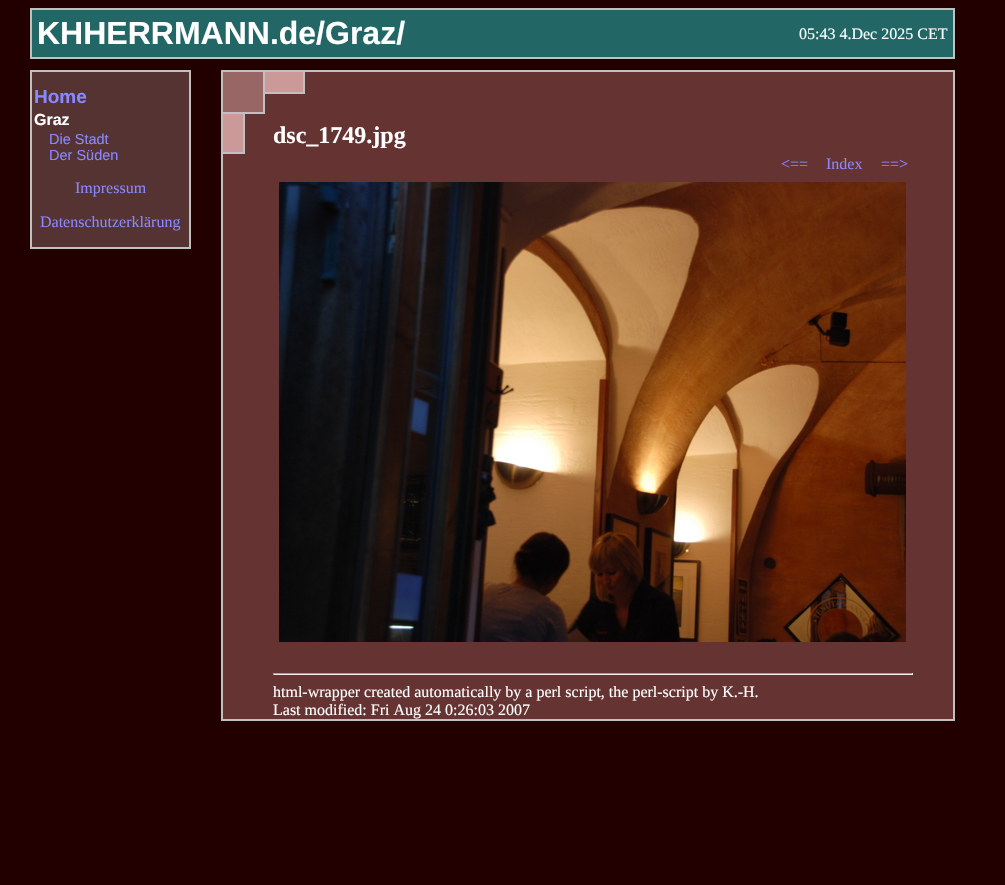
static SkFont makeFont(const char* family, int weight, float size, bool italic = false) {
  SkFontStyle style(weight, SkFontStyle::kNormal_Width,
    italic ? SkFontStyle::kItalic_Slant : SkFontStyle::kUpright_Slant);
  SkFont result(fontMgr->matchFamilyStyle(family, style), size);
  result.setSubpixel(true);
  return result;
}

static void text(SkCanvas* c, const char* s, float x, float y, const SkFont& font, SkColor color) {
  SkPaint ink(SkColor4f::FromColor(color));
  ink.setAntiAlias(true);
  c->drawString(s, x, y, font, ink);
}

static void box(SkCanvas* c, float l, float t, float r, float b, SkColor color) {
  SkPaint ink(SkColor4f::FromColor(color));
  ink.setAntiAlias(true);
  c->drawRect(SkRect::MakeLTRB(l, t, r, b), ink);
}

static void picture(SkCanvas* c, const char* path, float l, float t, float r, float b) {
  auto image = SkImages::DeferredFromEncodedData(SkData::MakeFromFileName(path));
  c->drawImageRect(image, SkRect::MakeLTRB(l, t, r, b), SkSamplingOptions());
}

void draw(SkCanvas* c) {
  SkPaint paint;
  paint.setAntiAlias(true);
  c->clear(0xff220000);
  paint.setColor(0xff226666);
  c->drawRect(SkRect::MakeLTRB(31, 9, 954, 58), paint);
  paint.setStyle(SkPaint::kStroke_Style);
  paint.setStrokeWidth(2);
  paint.setColor(0xffc0c0c0);
  c->drawRect(SkRect::MakeLTRB(31, 9, 954, 58), paint);
  SkFont face1 = makeFont("Liberation Sans", 700, 32);
  text(c, "KHHERRMANN.de/Graz/", 37, 44, face1, 0xffffffff);
  SkFont face2 = makeFont("Liberation Serif", 400, 16);
  text(c, "05:43 4.Dec 2025 CET", 799, 39, face2, 0xffffffff);
  paint.setStyle(SkPaint::kFill_Style);
  paint.setColor(0xff663333);
  c->drawRect(SkRect::MakeLTRB(222, 71, 954, 720), paint);
  paint.setStyle(SkPaint::kStroke_Style);
  paint.setColor(0xffc0c0c0);
  c->drawRect(SkRect::MakeLTRB(222, 71, 954, 720), paint);
  box(c, 265, 72, 303, 92, 0xffcc9999);
  c->drawRect(SkRect::MakeLTRB(222, 71, 304, 93), paint);
  box(c, 223, 114, 243, 152, 0xffcc9999);
  c->drawRect(SkRect::MakeLTRB(222, 71, 244, 153), paint);
  paint.setStyle(SkPaint::kFill_Style);
  paint.setColor(0xff553333);
  c->drawRect(SkRect::MakeLTRB(31, 71, 190, 248), paint);
  paint.setStyle(SkPaint::kStroke_Style);
  paint.setColor(0xffc0c0c0);
  c->drawRect(SkRect::MakeLTRB(31, 71, 190, 248), paint);
  SkFont face3 = makeFont("Liberation Sans", 700, 19);
  text(c, "Home", 34, 103, face3, 0xff8888ff);
  SkFont face4 = makeFont("Liberation Sans", 700, 16);
  text(c, "Graz", 34, 125, face4, 0xffffffff);
  SkFont face5 = makeFont("Liberation Sans", 400, 14.5f);
  text(c, "Die Stadt", 49, 144, face5, 0xff8888ff);
  text(c, "Der Süden", 49, 160, face5, 0xff8888ff);
  text(c, "Impressum", 75, 193, face2, 0xff8888ff);
  text(c, "Datenschutzerklärung", 40, 227, face2, 0xff8888ff);
  paint.setStyle(SkPaint::kFill_Style);
  paint.setColor(0xff996666);
  c->drawRect(SkRect::MakeLTRB(222, 71, 264, 113), paint);
  paint.setStyle(SkPaint::kStroke_Style);
  paint.setColor(0xffc0c0c0);
  c->drawRect(SkRect::MakeLTRB(222, 71, 264, 113), paint);
  SkFont face6 = makeFont("Liberation Serif", 700, 24);
  text(c, "dsc_1749.jpg", 273, 143, face6, 0xffffffff);
  text(c, "<==", 781, 169, face2, 0xff8888ff);
  text(c, "Index", 826, 169, face2, 0xff8888ff);
  text(c, "==>", 881, 169, face2, 0xff8888ff);
  picture(c, "img_01.png", 279, 182, 906, 642);
  box(c, 273, 673, 913, 674, 0xff9f9f9f);
  box(c, 912, 673, 913, 675, 0xffeeeeee);
  box(c, 273, 674, 913, 675, 0xffeeeeee);
  box(c, 273, 673, 274, 675, 0xff9f9f9f);
  text(c, "html-wrapper created automatically by a perl script, the perl-script by K.-H.", 273, 697, face2, 0xffffffff);
  text(c, "Last modified: Fri Aug 24 0:26:03 2007", 273, 715, face2, 0xffffffff);
}
